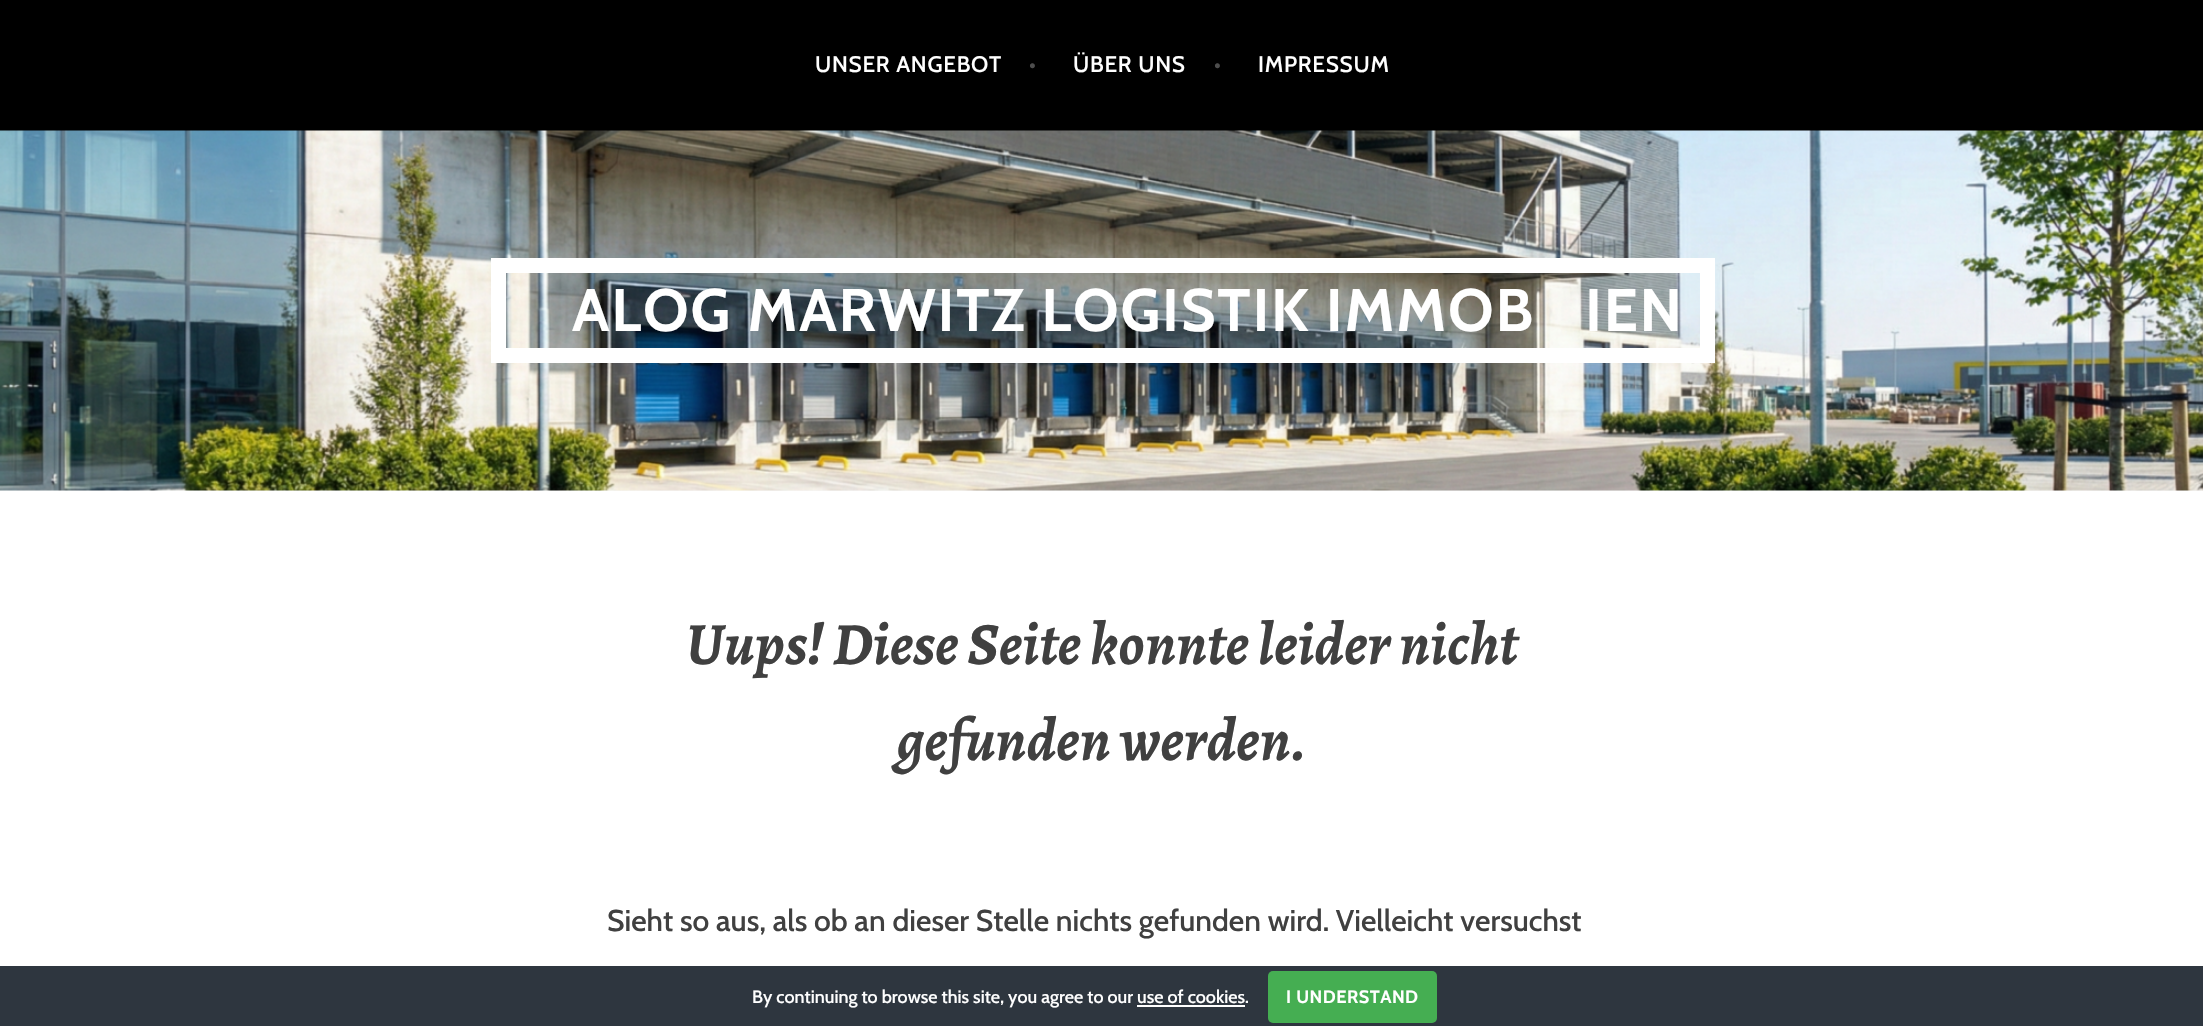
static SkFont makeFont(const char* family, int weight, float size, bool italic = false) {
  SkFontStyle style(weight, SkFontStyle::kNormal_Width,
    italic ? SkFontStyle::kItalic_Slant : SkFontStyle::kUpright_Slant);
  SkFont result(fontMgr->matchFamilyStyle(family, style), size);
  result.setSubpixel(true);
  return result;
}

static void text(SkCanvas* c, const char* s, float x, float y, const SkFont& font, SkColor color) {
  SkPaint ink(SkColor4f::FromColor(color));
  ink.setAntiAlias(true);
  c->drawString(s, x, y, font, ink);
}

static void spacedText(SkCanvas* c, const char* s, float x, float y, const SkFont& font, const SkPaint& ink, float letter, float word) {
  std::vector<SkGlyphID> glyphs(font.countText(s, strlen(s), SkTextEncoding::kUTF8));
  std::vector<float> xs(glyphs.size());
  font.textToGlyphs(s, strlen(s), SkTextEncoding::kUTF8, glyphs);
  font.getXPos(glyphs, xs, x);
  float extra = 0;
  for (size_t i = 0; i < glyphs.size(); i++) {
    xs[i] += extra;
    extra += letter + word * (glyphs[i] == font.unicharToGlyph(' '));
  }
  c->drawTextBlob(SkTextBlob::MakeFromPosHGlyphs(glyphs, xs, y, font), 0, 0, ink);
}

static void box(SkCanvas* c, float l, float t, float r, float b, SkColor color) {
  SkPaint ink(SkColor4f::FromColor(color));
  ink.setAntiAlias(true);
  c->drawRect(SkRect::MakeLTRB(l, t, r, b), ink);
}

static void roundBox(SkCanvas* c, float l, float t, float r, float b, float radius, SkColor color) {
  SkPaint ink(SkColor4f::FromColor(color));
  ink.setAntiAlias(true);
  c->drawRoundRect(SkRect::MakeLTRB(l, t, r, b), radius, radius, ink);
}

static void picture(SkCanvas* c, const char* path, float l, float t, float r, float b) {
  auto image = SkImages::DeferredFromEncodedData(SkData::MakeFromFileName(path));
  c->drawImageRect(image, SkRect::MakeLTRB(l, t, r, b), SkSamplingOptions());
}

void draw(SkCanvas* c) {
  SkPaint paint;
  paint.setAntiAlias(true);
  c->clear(0xffffffff);
  box(c, 0, 0, 2203, 131, 0xff000000);
  SkFont face1 = makeFont("Cabin", 500, 22.5f);
  paint.setColor(0xffffffff);
  spacedText(c, "UNSER ANGEBOT", 815, 72, face1, paint, 0.75f, 0);
  paint.setColor(0xff4d4d4d);
  spacedText(c, "•", 1029, 72, face1, paint, 0.75f, 0);
  paint.setColor(0xffffffff);
  spacedText(c, "ÜBER UNS", 1073, 72, face1, paint, 0.75f, 0);
  paint.setColor(0xff4d4d4d);
  spacedText(c, "•", 1214, 72, face1, paint, 0.75f, 0);
  paint.setColor(0xffffffff);
  spacedText(c, "IMPRESSUM", 1258, 72, face1, paint, 0.75f, 0);
  box(c, 0, 490, 2203, 491, 0xfff7f7f7);
  picture(c, "img_01.png", 0, 130, 2203, 491);
  paint.setStyle(SkPaint::kStroke_Style);
  paint.setStrokeWidth(15);
  c->drawRect(SkRect::MakeLTRB(498.5f, 265.5f, 1707.5f, 355.5f), paint);
  SkFont face2 = makeFont("Cabin", 700, 60);
  paint.setStyle(SkPaint::kFill_Style);
  spacedText(c, "ALOG MARWITZ LOGISTIK IMMOB", 572, 331, face2, paint, 1.8f, 0);
  spacedText(c, "IEN", 1585, 331, face2, paint, 1.8f, 0);
  SkFont face3 = makeFont("Alegreya", 700, 60, true);
  text(c, "Uups! Diese Seite konnte leider nicht", 686, 664, face3, 0xff404040);
  text(c, "gefunden werden.", 896, 760, face3, 0xff404040);
  SkFont face4 = makeFont("Cabin", 500, 30);
  text(c, "Sieht so aus, als ob an dieser Stelle nichts gefunden wird. Vielleicht versuchst", 607, 931, face4, 0xff404040);
  box(c, 0, 966, 2203, 1026, 0xff2e363f);
  SkFont face5 = makeFont("Cabin", 500, 18);
  text(c, "By continuing to browse this site, you agree to our use of cookies.", 752, 1003, face5, 0xffffffff);
  roundBox(c, 1268, 971, 1437, 1023, 5, 0xff45ae52);
  SkFont face6 = makeFont("Cabin", 700, 18);
  spacedText(c, "I UNDERSTAND", 1286, 1003, face6, paint, 0.5f, 0);
  box(c, 1137, 1005, 1245, 1007, 0xffffffff);
}
